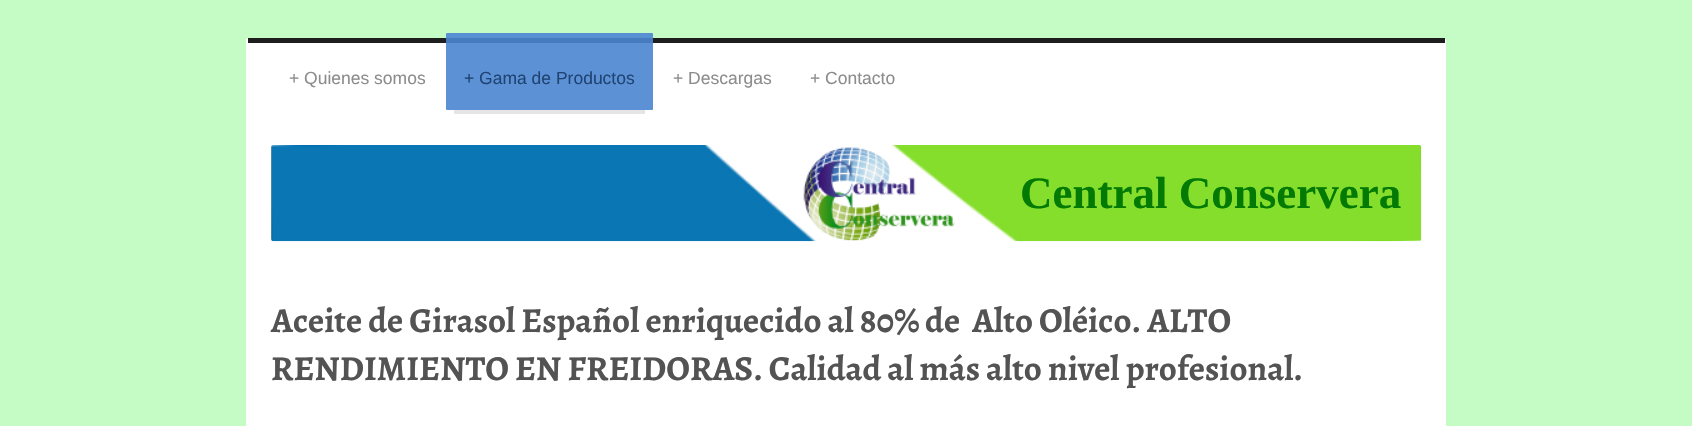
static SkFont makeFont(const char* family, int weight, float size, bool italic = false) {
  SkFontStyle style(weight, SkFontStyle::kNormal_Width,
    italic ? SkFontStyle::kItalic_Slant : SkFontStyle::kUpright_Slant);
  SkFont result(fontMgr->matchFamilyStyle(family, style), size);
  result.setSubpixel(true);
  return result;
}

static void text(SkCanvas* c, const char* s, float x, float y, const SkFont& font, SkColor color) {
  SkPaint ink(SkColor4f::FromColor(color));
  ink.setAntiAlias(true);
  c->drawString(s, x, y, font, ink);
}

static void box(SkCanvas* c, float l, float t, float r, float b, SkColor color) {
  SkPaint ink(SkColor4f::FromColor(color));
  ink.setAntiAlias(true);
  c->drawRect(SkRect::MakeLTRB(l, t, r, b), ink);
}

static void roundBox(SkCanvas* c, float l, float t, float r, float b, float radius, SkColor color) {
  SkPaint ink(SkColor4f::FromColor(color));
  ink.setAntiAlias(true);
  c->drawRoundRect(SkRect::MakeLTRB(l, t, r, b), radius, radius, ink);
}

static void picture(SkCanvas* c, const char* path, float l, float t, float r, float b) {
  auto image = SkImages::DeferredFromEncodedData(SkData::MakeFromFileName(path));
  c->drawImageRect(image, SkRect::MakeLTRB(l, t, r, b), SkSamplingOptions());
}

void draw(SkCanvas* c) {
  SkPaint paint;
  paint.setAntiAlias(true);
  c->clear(0xffc5fcc5);
  paint.setColor(0xffffffff);
  c->drawPath(SkPathBuilder().moveTo(248.5f, 38).lineTo(1443.5f, 38).cubicTo(1445, 38, 1446, 39, 1446, 40.5f).lineTo(1446, 426).cubicTo(1446, 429, 1444, 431, 1441, 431).lineTo(251, 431).cubicTo(248, 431, 246, 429, 246, 426).lineTo(246, 40.5f).cubicTo(246, 39, 247, 38, 248.5f, 38).close().detach(), paint);
  box(c, 248, 38, 1445, 43, 0xff1e1e1e);
  SkFont face1 = makeFont("Liberation Sans", 400, 17.5f);
  text(c, "+ Quienes somos", 289, 84, face1, 0xff8c8c8c);
  c->save();
  c->clipRect(SkRect::MakeLTRB(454, 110, 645, 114));
  paint.setColor(0x1a000000);
  paint.setMaskFilter(SkMaskFilter::MakeBlur(kNormal_SkBlurStyle, 0.5f));
  c->drawRect(SkRect::MakeLTRB(454, 51, 645, 114), paint);
  paint.setMaskFilter(nullptr);
  c->restore();
  roundBox(c, 446, 33, 653, 110, 1, 0xe64b85d1);
  text(c, "+ Gama de Productos", 464, 84, face1, 0xff1f4473);
  text(c, "+ Descargas", 673, 84, face1, 0xff8c8c8c);
  text(c, "+ Contacto", 810, 84, face1, 0xff8c8c8c);
  roundBox(c, 271, 145, 1421, 241, 2.5f, 0xffa0a0a0);
  picture(c, "img_01.png", 271, 145, 1422, 242);
  picture(c, "img_02.png", 803, 147, 955, 241);
  SkFont face2 = makeFont("Liberation Serif", 700, 45);
  text(c, "Central Conservera", 1020, 208, face2, 0xff037a04);
  SkFont face3 = makeFont("Alegreya", 700, 35);
  text(c, "Aceite de Girasol Español enriquecido al 80% de  Alto Oléico. ALTO", 271, 332, face3, 0xff535353);
  text(c, "RENDIMIENTO EN FREIDORAS. Calidad al más alto nivel profesional.", 271, 380, face3, 0xff535353);
}
